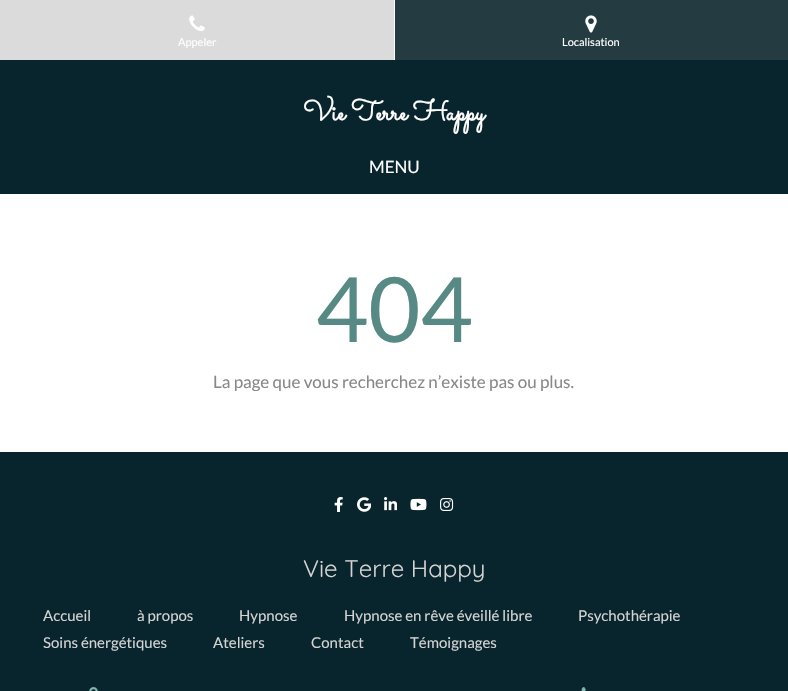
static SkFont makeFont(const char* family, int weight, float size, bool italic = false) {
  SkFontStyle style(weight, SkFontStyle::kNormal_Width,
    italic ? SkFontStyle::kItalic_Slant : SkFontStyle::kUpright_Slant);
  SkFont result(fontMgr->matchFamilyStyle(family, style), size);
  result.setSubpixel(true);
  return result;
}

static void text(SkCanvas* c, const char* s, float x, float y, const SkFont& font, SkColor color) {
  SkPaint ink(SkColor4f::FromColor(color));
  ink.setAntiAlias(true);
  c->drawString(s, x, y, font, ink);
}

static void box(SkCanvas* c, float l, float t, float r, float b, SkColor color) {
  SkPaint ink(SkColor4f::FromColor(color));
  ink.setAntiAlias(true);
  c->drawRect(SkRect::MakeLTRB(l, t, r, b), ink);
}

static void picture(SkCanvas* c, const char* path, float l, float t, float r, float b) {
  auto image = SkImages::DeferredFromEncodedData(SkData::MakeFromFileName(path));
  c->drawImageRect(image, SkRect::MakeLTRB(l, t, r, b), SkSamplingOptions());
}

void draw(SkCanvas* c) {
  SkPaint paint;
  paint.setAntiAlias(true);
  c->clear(0xffffffff);
  box(c, 0, 60, 788, 194, 0xff08242c);
  box(c, 395, 0, 788, 60, 0xff243b41);
  box(c, 0, 0, 394, 60, 0xffdbdbdb);
  picture(c, "img_01.png", 189, 15, 205, 31);
  SkFont face1 = makeFont("Lato", 400, 11);
  text(c, "Appeler", 178, 46, face1, 0xffffffff);
  box(c, 394, 0, 395, 60, 0xfffbfbfb);
  picture(c, "img_02.png", 585, 15, 597, 33);
  text(c, "Localisation", 562, 46, face1, 0xffffffff);
  SkFont face2 = makeFont("Sacramento", 700, 28);
  text(c, "Vie Terre Happy", 303, 120, face2, 0xffffffff);
  SkFont face3 = makeFont("Lato", 400, 17);
  text(c, "MENU", 369, 173, face3, 0xffffffff);
  SkFont face4 = makeFont("Lato", 400, 90);
  text(c, "404", 316, 342, face4, 0xff578a84);
  text(c, "La page que vous recherchez n’existe pas ou plus.", 213, 388, face3, 0xff888888);
  box(c, 0, 452, 788, 691, 0xff08242c);
  picture(c, "img_03.png", 334, 497, 343, 512);
  picture(c, "img_04.png", 357, 497, 371, 512);
  picture(c, "img_05.png", 384, 497, 397, 511);
  picture(c, "img_06.png", 410, 498, 427, 511);
  picture(c, "img_07.png", 440, 498, 454, 511);
  SkFont face5 = makeFont("Quicksand", 400, 24);
  text(c, "Vie Terre Happy", 303, 577, face5, 0xffd4d4d4);
  SkFont face6 = makeFont("Lato", 400, 15);
  text(c, "Accueil", 43, 621, face6, 0xffd4d4d4);
  text(c, "à propos", 137, 621, face6, 0xffd4d4d4);
  text(c, "Hypnose", 239, 621, face6, 0xffd4d4d4);
  text(c, "Hypnose en rêve éveillé libre", 344, 621, face6, 0xffd4d4d4);
  text(c, "Psychothérapie", 578, 621, face6, 0xffd4d4d4);
  text(c, "Soins énergétiques", 43, 648, face6, 0xffd4d4d4);
  text(c, "Ateliers", 213, 648, face6, 0xffd4d4d4);
  text(c, "Contact", 311, 648, face6, 0xffd4d4d4);
  text(c, "Témoignages", 410, 648, face6, 0xffd4d4d4);
  picture(c, "img_08.png", 89, 687, 98, 691);
  picture(c, "img_09.png", 581, 687, 586, 691);
}
